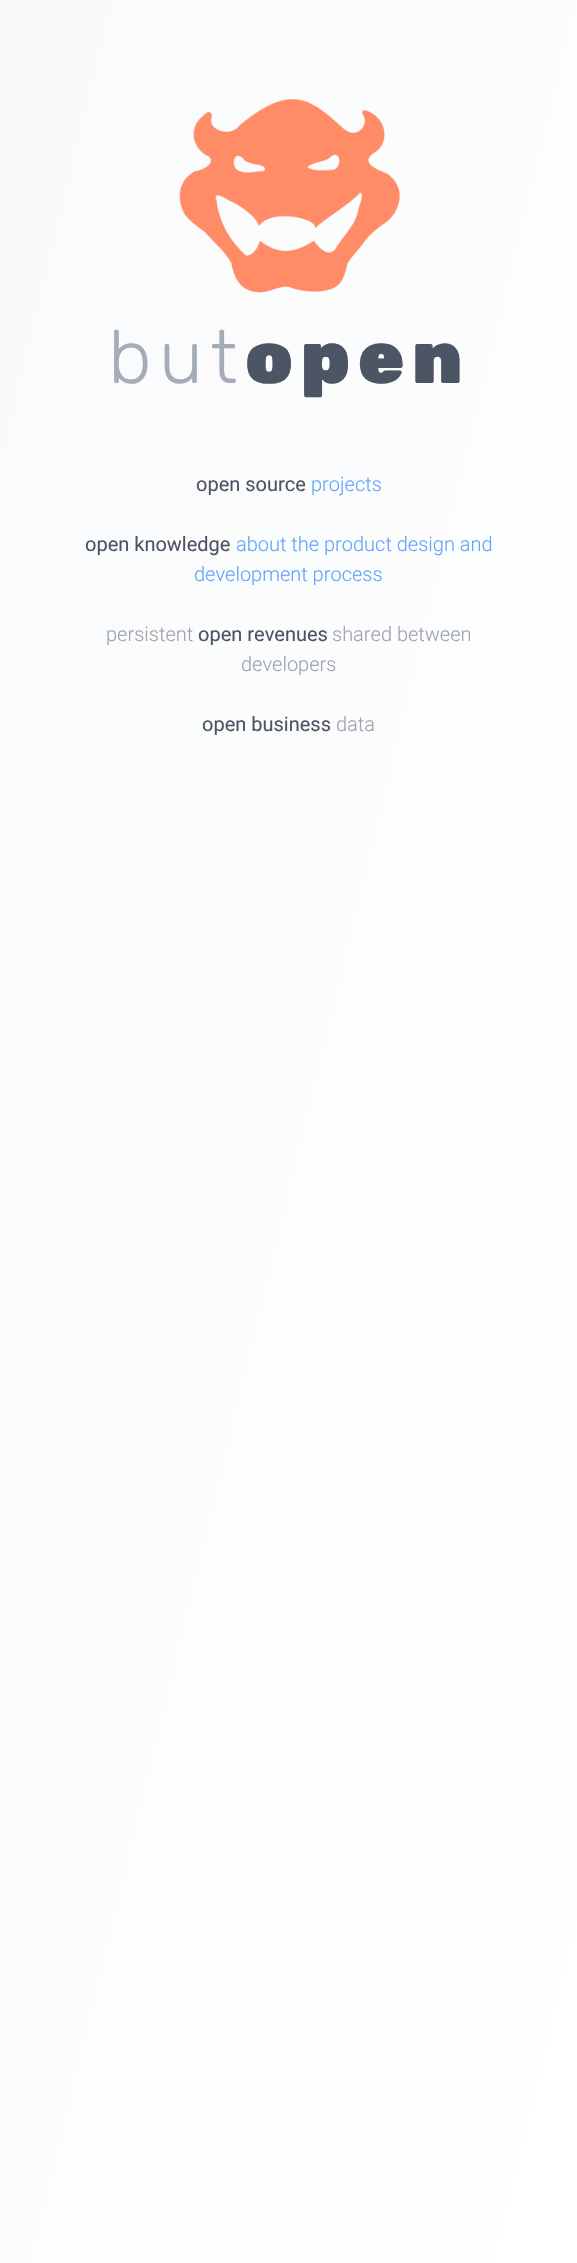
static SkFont makeFont(const char* family, int weight, float size, bool italic = false) {
  SkFontStyle style(weight, SkFontStyle::kNormal_Width,
    italic ? SkFontStyle::kItalic_Slant : SkFontStyle::kUpright_Slant);
  SkFont result(fontMgr->matchFamilyStyle(family, style), size);
  result.setSubpixel(true);
  return result;
}

static void text(SkCanvas* c, const char* s, float x, float y, const SkFont& font, SkColor color) {
  SkPaint ink(SkColor4f::FromColor(color));
  ink.setAntiAlias(true);
  c->drawString(s, x, y, font, ink);
}

static void spacedText(SkCanvas* c, const char* s, float x, float y, const SkFont& font, const SkPaint& ink, float letter, float word) {
  std::vector<SkGlyphID> glyphs(font.countText(s, strlen(s), SkTextEncoding::kUTF8));
  std::vector<float> xs(glyphs.size());
  font.textToGlyphs(s, strlen(s), SkTextEncoding::kUTF8, glyphs);
  font.getXPos(glyphs, xs, x);
  float extra = 0;
  for (size_t i = 0; i < glyphs.size(); i++) {
    xs[i] += extra;
    extra += letter + word * (glyphs[i] == font.unicharToGlyph(' '));
  }
  c->drawTextBlob(SkTextBlob::MakeFromPosHGlyphs(glyphs, xs, y, font), 0, 0, ink);
}

static void picture(SkCanvas* c, const char* path, float l, float t, float r, float b) {
  auto image = SkImages::DeferredFromEncodedData(SkData::MakeFromFileName(path));
  c->drawImageRect(image, SkRect::MakeLTRB(l, t, r, b), SkSamplingOptions());
}

void draw(SkCanvas* c) {
  SkPaint paint;
  paint.setAntiAlias(true);
  c->clear(0xffffffff);
  {
    const SkColor colors[] = {0xfff9fafb, 0xffffffff};
    const float stops[] = {0, 1};
    const SkPoint ends[] = {{-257, 1064}, {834, 1327}};
    paint.setShader(SkGradientShader::MakeLinear(ends, colors, stops, 2, SkTileMode::kClamp));
    paint.setAlpha(255);
  }
  c->drawRect(SkRect::MakeLTRB(0, 0, 577, 2263), paint);
  picture(c, "img_01.png", 179, 99, 400, 293);
  SkFont face1 = makeFont("Rubik", 300, 75);
  paint.setShader(nullptr);
  paint.setColor(0xffa5acb7);
  spacedText(c, "but", 108, 383, face1, paint, 7.5f, 0);
  SkFont face2 = makeFont("Rubik", 900, 75);
  paint.setColor(0xff4b5563);
  spacedText(c, "open", 245, 383, face2, paint, 7.5f, 0);
  SkFont face3 = makeFont("Roboto", 400, 20);
  text(c, "open source", 196, 491, face3, 0xff4b5563);
  SkFont face4 = makeFont("Roboto", 300, 20);
  text(c, "projects", 311, 491, face4, 0xff60a5fa);
  text(c, "open knowledge", 85, 551, face3, 0xff4b5563);
  text(c, "about the product design and", 236, 551, face4, 0xff60a5fa);
  text(c, "development process", 194, 581, face4, 0xff60a5fa);
  text(c, "persistent", 106, 641, face4, 0xff9ca3af);
  text(c, "open revenues", 198, 641, face3, 0xff4b5563);
  text(c, "shared between", 332, 641, face4, 0xff9ca3af);
  text(c, "developers", 241, 671, face4, 0xff9ca3af);
  text(c, "open business", 202, 731, face3, 0xff4b5563);
  text(c, "data", 336, 731, face4, 0xff9ca3af);
}
